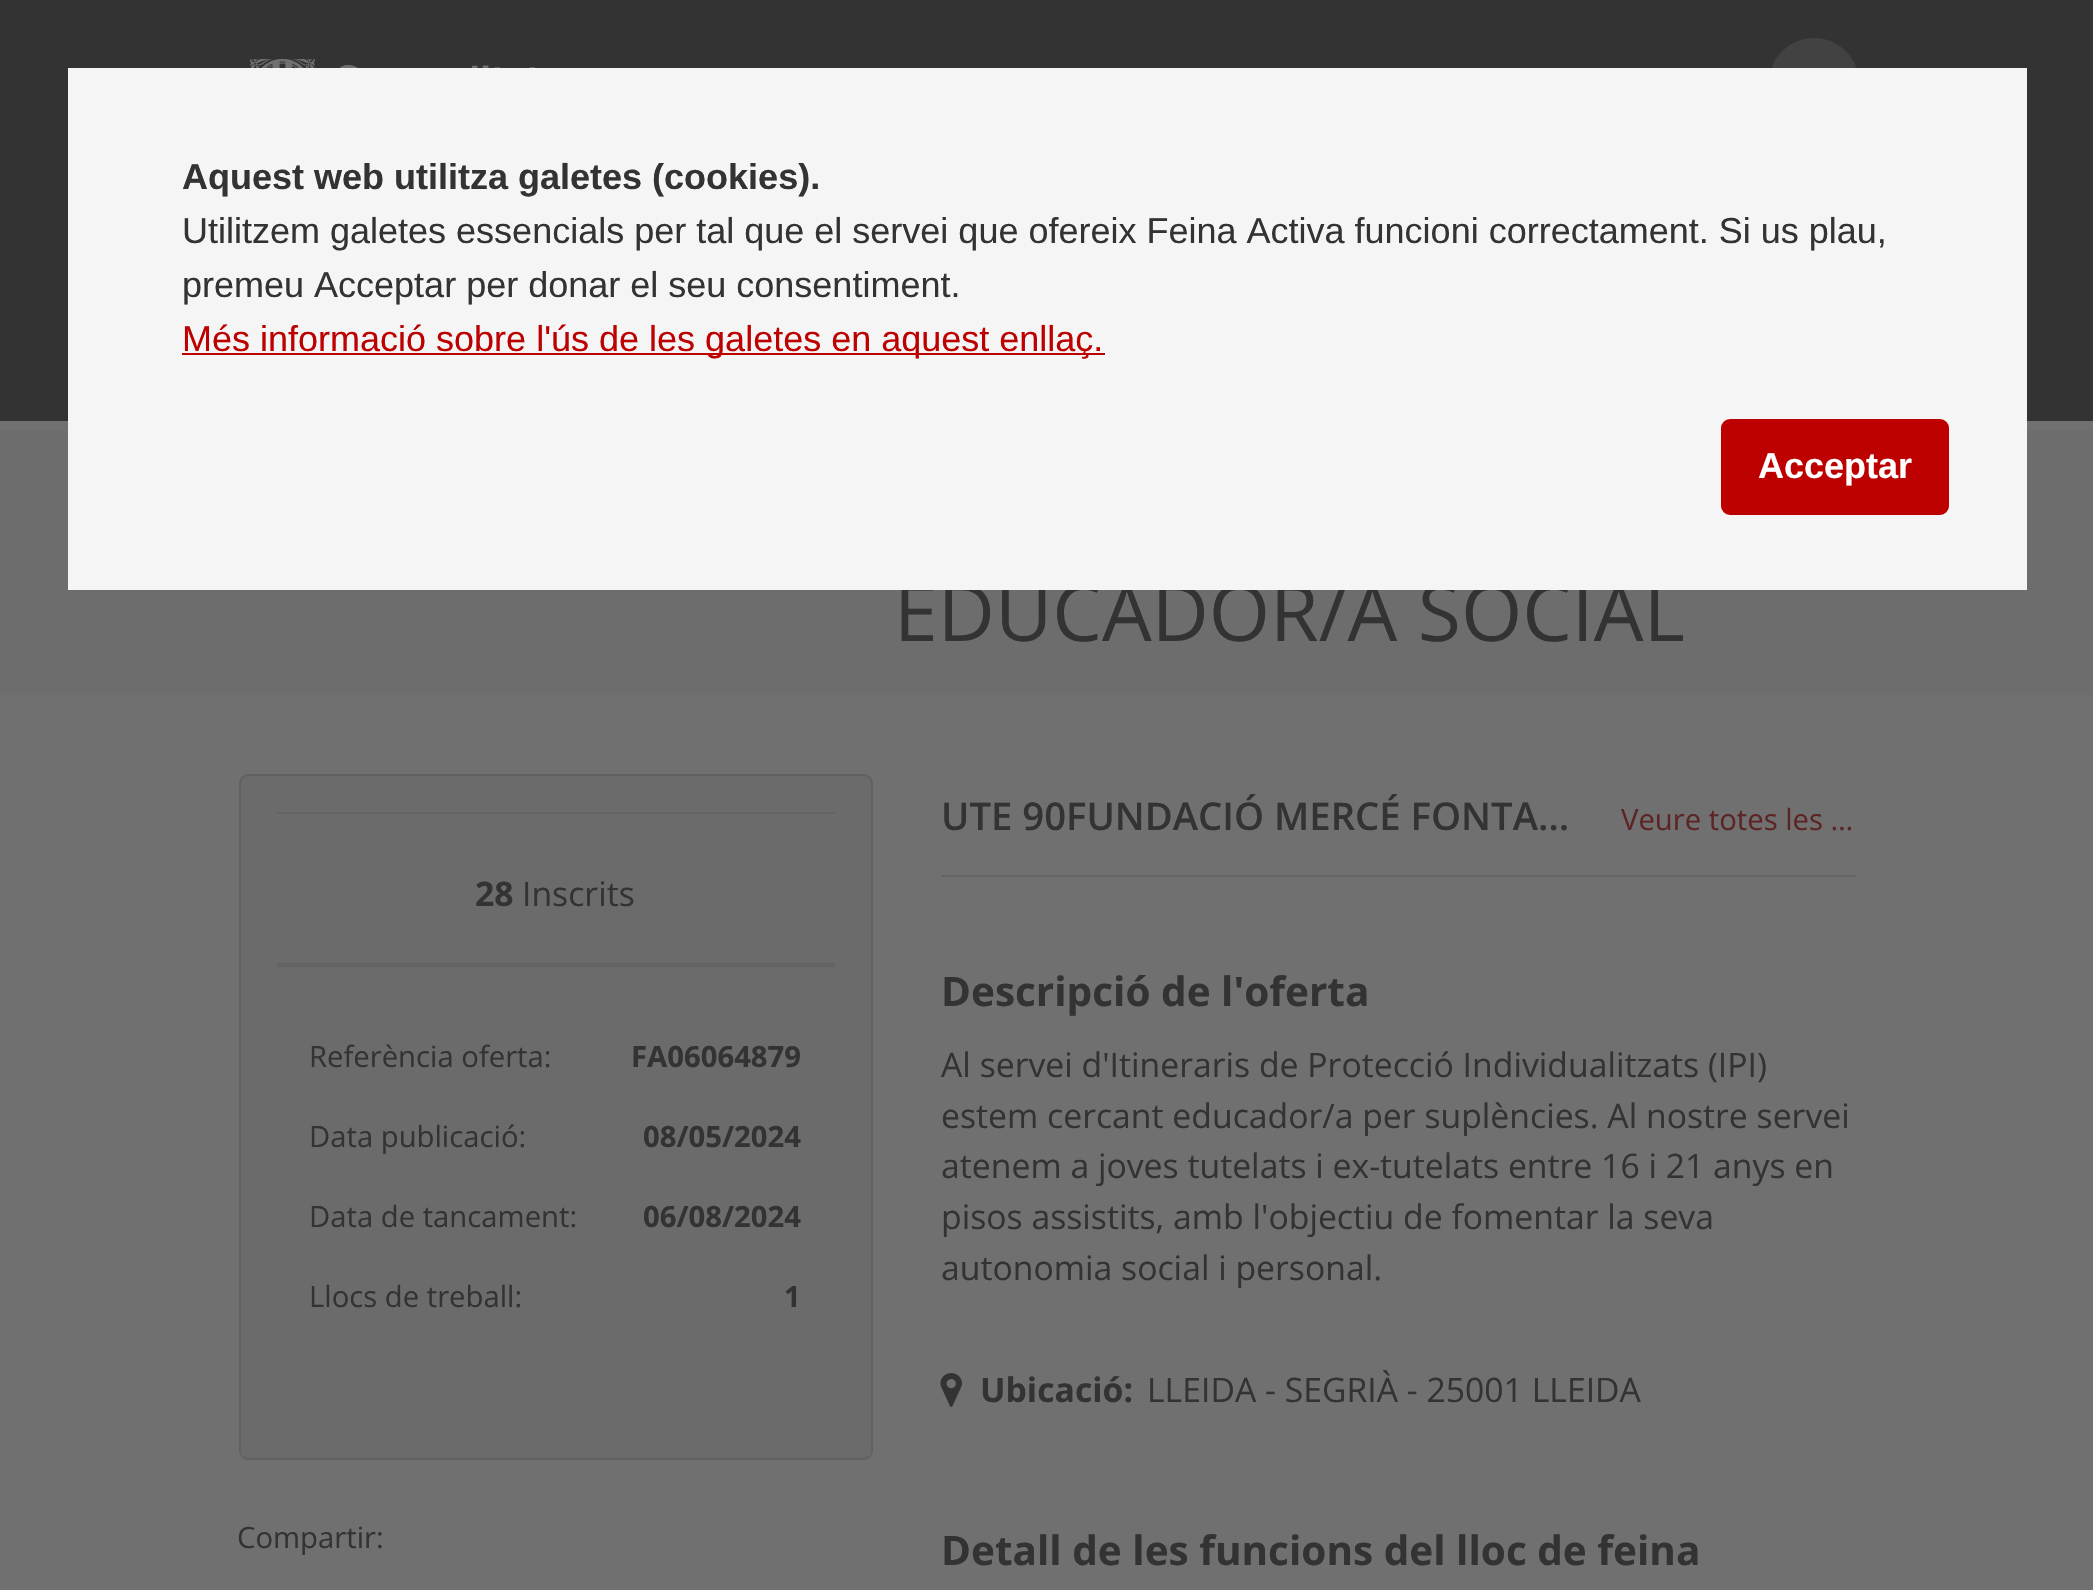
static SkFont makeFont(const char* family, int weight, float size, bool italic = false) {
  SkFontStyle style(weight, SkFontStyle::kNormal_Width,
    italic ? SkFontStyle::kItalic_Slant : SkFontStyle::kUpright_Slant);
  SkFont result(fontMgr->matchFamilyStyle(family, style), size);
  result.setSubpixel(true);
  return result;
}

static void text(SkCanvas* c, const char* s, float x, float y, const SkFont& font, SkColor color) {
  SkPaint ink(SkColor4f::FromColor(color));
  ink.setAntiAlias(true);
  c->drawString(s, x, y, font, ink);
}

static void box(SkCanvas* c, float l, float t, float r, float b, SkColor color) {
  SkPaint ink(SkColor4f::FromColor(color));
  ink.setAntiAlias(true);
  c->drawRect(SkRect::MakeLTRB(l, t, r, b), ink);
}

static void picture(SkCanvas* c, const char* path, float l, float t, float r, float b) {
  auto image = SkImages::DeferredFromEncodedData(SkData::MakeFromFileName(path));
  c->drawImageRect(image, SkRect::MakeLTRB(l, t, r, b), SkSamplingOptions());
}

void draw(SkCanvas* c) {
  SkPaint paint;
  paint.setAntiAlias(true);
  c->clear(0xff707070);
  box(c, 0, 0, 2093, 421, 0xff333333);
  paint.setColor(0xff424242);
  c->drawCircle(1814, 83, 45, paint);
  box(c, 0, 430, 2093, 695, 0xff6d6d6d);
  SkFont face1 = makeFont("Open Sans", 400, 78.75f);
  text(c, "EDUCADOR/A SOCIAL", 894, 641, face1, 0xff333333);
  box(c, 68, 68, 2027, 590, 0xfff5f5f5);
  SkFont face2 = makeFont("Liberation Sans", 700, 36);
  text(c, "Aquest web utilitza galetes (cookies).", 182, 189, face2, 0xff333333);
  SkFont face3 = makeFont("Liberation Sans", 400, 36);
  text(c, "Utilitzem galetes essencials per tal que el servei que ofereix Feina Activa funcioni correctament. Si us plau,", 182, 243, face3, 0xff333333);
  text(c, "premeu Acceptar per donar el seu consentiment.", 182, 297, face3, 0xff333333);
  box(c, 182, 353, 1105, 355, 0xffbd0000);
  text(c, "Més informació sobre l'ús de les galetes en aquest enllaç.", 182, 351, face3, 0xffbd0000);
  paint.setColor(0xffbd0000);
  c->drawRoundRect(SkRect::MakeLTRB(1722, 420, 1948, 514), 8, 8, paint);
  paint.setStyle(SkPaint::kStroke_Style);
  paint.setStrokeWidth(2);
  c->drawRoundRect(SkRect::MakeLTRB(1722, 420, 1948, 514), 8, 8, paint);
  text(c, "Acceptar", 1758, 478, face2, 0xffffffff);
  picture(c, "img_01.png", 250, 59, 536, 68);
  paint.setStyle(SkPaint::kFill_Style);
  paint.setColor(0xff6b6b6b);
  c->drawRoundRect(SkRect::MakeLTRB(240, 775, 872, 1459), 8, 8, paint);
  paint.setStyle(SkPaint::kStroke_Style);
  paint.setColor(0xff616161);
  c->drawRoundRect(SkRect::MakeLTRB(240, 775, 872, 1459), 8, 8, paint);
  box(c, 277, 812, 835, 814, 0xff646464);
  box(c, 277, 963, 835, 967, 0xff646464);
  SkFont face4 = makeFont("Open Sans", 700, 33.75f);
  text(c, "28", 475, 906, face4, 0xff333333);
  SkFont face5 = makeFont("Open Sans", 400, 33.75f);
  text(c, "Inscrits", 522, 906, face5, 0xff333333);
  SkFont face6 = makeFont("Open Sans", 400, 29.25f);
  text(c, "Referència oferta:", 309, 1067, face6, 0xff333333);
  SkFont face7 = makeFont("Open Sans", 700, 29.25f);
  text(c, "FA06064879", 631, 1067, face7, 0xff333333);
  text(c, "Data publicació:", 309, 1147, face6, 0xff333333);
  text(c, "08/05/2024", 643, 1147, face7, 0xff333333);
  text(c, "Data de tancament:", 309, 1227, face6, 0xff333333);
  text(c, "06/08/2024", 643, 1227, face7, 0xff333333);
  text(c, "Llocs de treball:", 309, 1307, face6, 0xff333333);
  text(c, "1", 784, 1307, face7, 0xff333333);
  text(c, "Compartir:", 237, 1548, face6, 0xff333333);
  box(c, 941, 875, 1856, 877, 0xff646464);
  SkFont face8 = makeFont("Open Sans", 600, 38.25f);
  text(c, "UTE 90FUNDACIÓ MERCÉ FONTA…", 941, 830, face8, 0xff333333);
  text(c, "Veure totes les …", 1621, 830, face6, 0xff5c2424);
  SkFont face9 = makeFont("Open Sans", 700, 40.5f);
  text(c, "Descripció de l'oferta", 941, 1006, face9, 0xff333333);
  text(c, "Al servei d'Itineraris de Protecció Individualitzats (IPI)", 941, 1077, face5, 0xff333333);
  text(c, "estem cercant educador/a per suplències. Al nostre servei", 941, 1128, face5, 0xff333333);
  text(c, "atenem a joves tutelats i ex-tutelats entre 16 i 21 anys en", 941, 1178, face5, 0xff333333);
  text(c, "pisos assistits, amb l'objectiu de fomentar la seva", 941, 1229, face5, 0xff333333);
  text(c, "autonomia social i personal.", 941, 1280, face5, 0xff333333);
  picture(c, "img_02.png", 940, 1373, 962, 1407);
  text(c, "Ubicació:", 980, 1402, face4, 0xff333333);
  text(c, "LLEIDA - SEGRIÀ - 25001 LLEIDA", 1147, 1402, face5, 0xff333333);
  text(c, "Detall de les funcions del lloc de feina", 941, 1565, face9, 0xff333333);
}
